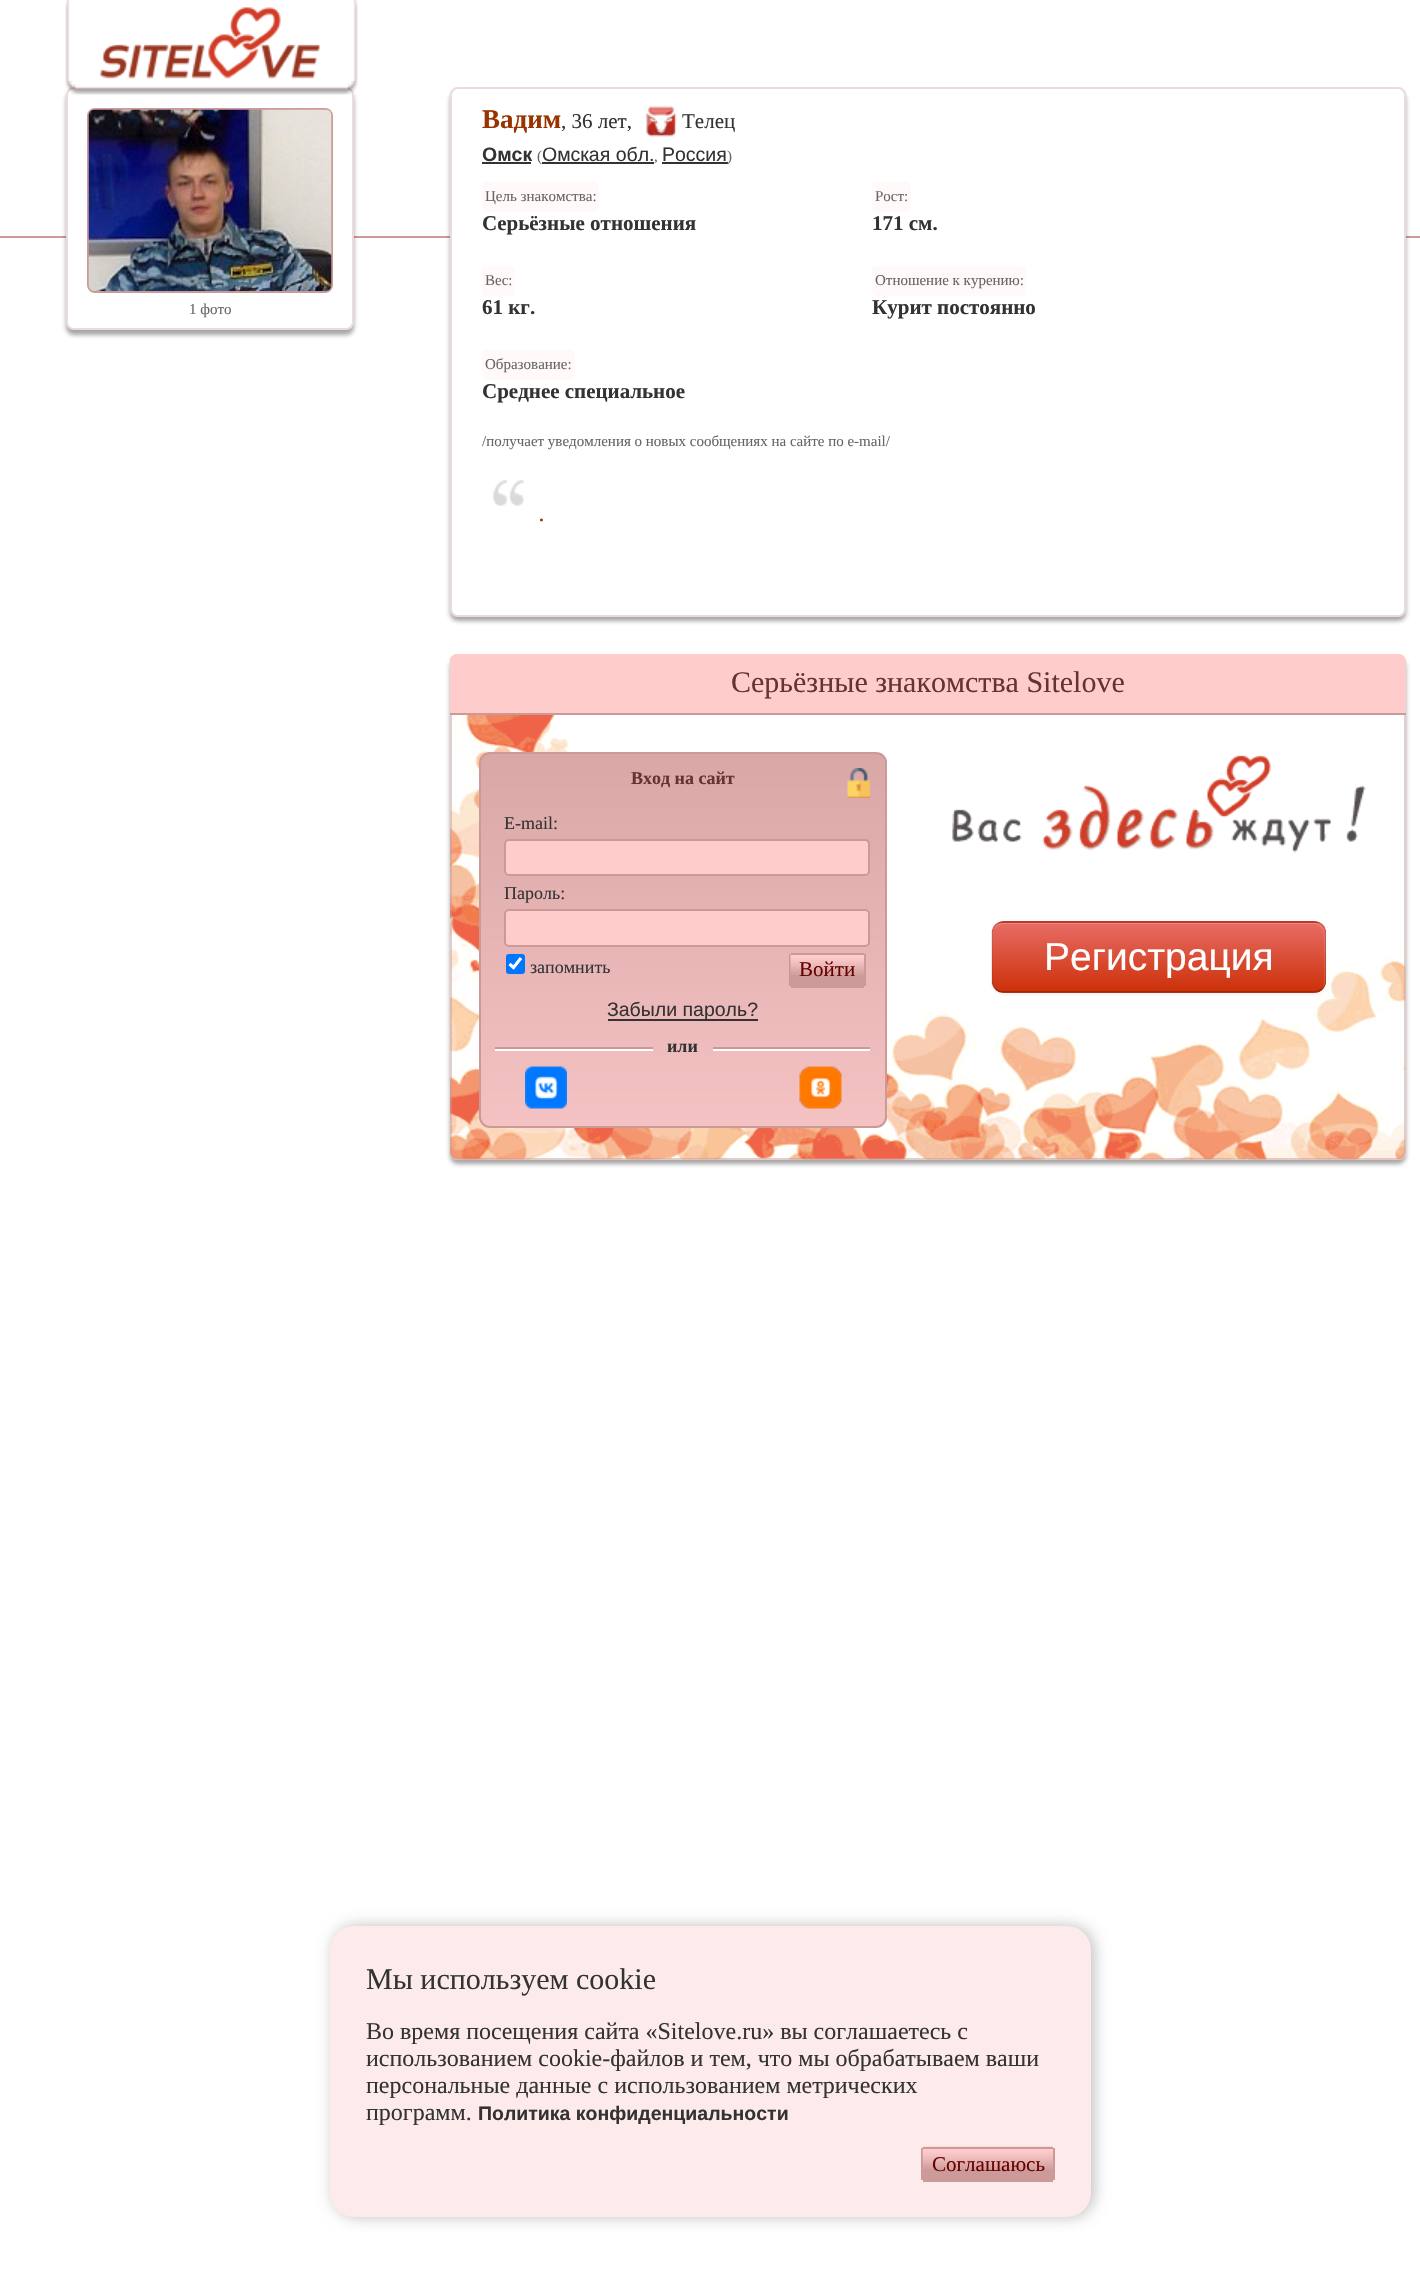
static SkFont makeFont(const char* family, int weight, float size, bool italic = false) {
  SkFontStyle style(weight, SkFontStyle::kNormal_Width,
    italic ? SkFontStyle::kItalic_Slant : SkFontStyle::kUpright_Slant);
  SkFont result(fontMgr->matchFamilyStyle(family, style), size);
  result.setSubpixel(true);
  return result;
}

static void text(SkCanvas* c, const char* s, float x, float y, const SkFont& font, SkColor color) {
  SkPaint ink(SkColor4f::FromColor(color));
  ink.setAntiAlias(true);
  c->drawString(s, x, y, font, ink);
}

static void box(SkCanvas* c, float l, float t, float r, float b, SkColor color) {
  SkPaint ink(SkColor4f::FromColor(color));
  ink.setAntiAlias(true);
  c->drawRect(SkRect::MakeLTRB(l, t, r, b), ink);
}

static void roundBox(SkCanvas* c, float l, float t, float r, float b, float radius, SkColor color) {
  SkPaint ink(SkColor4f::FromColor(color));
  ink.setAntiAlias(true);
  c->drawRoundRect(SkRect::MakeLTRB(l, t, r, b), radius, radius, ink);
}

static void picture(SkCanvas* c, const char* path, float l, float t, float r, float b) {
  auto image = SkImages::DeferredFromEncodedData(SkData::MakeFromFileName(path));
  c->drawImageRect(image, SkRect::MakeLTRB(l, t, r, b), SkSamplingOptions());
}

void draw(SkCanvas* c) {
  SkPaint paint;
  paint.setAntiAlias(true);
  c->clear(0xffffffff);
  box(c, 0, 236, 1420, 238, 0xffcc9999);
  paint.setColor(0x59000000);
  paint.setMaskFilter(SkMaskFilter::MakeBlur(kNormal_SkBlurStyle, 2));
  c->drawRoundRect(SkRect::MakeLTRB(66, 92, 354, 335), 8, 8, paint);
  paint.setMaskFilter(nullptr);
  roundBox(c, 66, 87, 354, 330, 8, 0xffffffff);
  paint.setStyle(SkPaint::kStroke_Style);
  paint.setStrokeWidth(2);
  paint.setColor(0x59cc9999);
  c->drawRoundRect(SkRect::MakeLTRB(67, 88, 353, 329), 7, 7, paint);
  picture(c, "img_01.png", 65, 0, 358, 95);
  picture(c, "img_03.png", 89, 110, 331, 291);
  paint.setColor(0xffcc9999);
  c->drawRoundRect(SkRect::MakeLTRB(88, 109, 332, 292), 7, 7, paint);
  picture(c, "img_02.png", 88, 109, 332, 291);
  SkFont face1 = makeFont("Liberation Serif", 400, 15);
  text(c, "1 фото", 189, 314, face1, 0xff666666);
  paint.setStyle(SkPaint::kFill_Style);
  paint.setColor(0x59000000);
  paint.setMaskFilter(SkMaskFilter::MakeBlur(kNormal_SkBlurStyle, 2));
  c->drawRoundRect(SkRect::MakeLTRB(450, 92, 1406, 621), 8, 8, paint);
  paint.setMaskFilter(nullptr);
  roundBox(c, 450, 87, 1406, 617, 8, 0xffffffff);
  paint.setStyle(SkPaint::kStroke_Style);
  paint.setColor(0x59cc9999);
  c->drawRoundRect(SkRect::MakeLTRB(451, 88, 1405, 616), 7, 7, paint);
  SkFont face2 = makeFont("Liberation Serif", 700, 27);
  text(c, "Вадим", 482, 128, face2, 0xff993300);
  SkFont face3 = makeFont("Liberation Serif", 400, 21);
  text(c, ", 36 лет,", 561, 128, face3, 0xff333333);
  picture(c, "img_04.png", 645, 105, 677, 139);
  text(c, "Телец", 682, 128, face3, 0xff333333);
  SkFont face4 = makeFont("Liberation Sans", 700, 19.5f);
  text(c, "Омск", 482, 161, face4, 0xff333333);
  box(c, 482, 162, 531, 164, 0xff333333);
  text(c, "(", 537, 161, face1, 0xff666666);
  SkFont face5 = makeFont("Liberation Sans", 400, 19.5f);
  text(c, "Омская обл.", 542, 161, face5, 0xff333333);
  text(c, ",", 654, 161, face1, 0xff666666);
  box(c, 542, 162, 654, 164, 0xff333333);
  box(c, 662, 162, 728, 164, 0xff333333);
  text(c, "Россия", 662, 161, face5, 0xff333333);
  text(c, ")", 727, 161, face1, 0xff666666);
  roundBox(c, 482, 182, 599, 212, 5, 0xfffff9f9);
  text(c, "Цель знакомства:", 485, 201, face1, 0xff666666);
  SkFont face6 = makeFont("Liberation Serif", 700, 21);
  text(c, "Серьёзные отношения", 482, 230, face6, 0xff333333);
  roundBox(c, 872, 182, 911, 212, 5, 0xfffff9f9);
  text(c, "Рост:", 875, 201, face1, 0xff666666);
  text(c, "171 см.", 872, 230, face6, 0xff333333);
  roundBox(c, 482, 266, 515, 296, 5, 0xfffff9f9);
  text(c, "Вес:", 485, 285, face1, 0xff666666);
  text(c, "61 кг.", 482, 314, face6, 0xff333333);
  roundBox(c, 872, 266, 1026, 296, 5, 0xfffff9f9);
  text(c, "Отношение к курению:", 875, 285, face1, 0xff666666);
  text(c, "Курит постоянно", 872, 314, face6, 0xff333333);
  roundBox(c, 482, 350, 575, 380, 5, 0xfffff9f9);
  text(c, "Образование:", 485, 369, face1, 0xff666666);
  text(c, "Среднее специальное", 482, 398, face6, 0xff333333);
  text(c, "/получает уведомления о новых сообщениях на сайте по e-mail/", 482, 446, face1, 0xff666666);
  picture(c, "img_05.png", 493, 479, 524, 506);
  SkFont face7 = makeFont("Liberation Serif", 400, 24, true);
  text(c, ".", 539, 521, face7, 0xff993300);
  paint.setStyle(SkPaint::kFill_Style);
  paint.setColor(0x40000000);
  paint.setMaskFilter(SkMaskFilter::MakeBlur(kNormal_SkBlurStyle, 7.5f));
  c->drawRoundRect(SkRect::MakeLTRB(333, 1926, 1094, 2217), 24, 24, paint);
  paint.setMaskFilter(nullptr);
  roundBox(c, 330, 1926, 1091, 2217, 24, 0xfffdeaea);
  SkFont face8 = makeFont("Liberation Serif", 400, 30);
  text(c, "Мы используем сookie", 366, 1989, face8, 0xff333333);
  SkFont face9 = makeFont("Liberation Serif", 400, 24);
  text(c, "Во время посещения сайта «Sitelove.ru» вы соглашаетесь с", 366, 2039, face9, 0xff333333);
  text(c, "использованием cookie-файлов и тем, что мы обрабатываем ваши", 366, 2066, face9, 0xff333333);
  text(c, "персональные данные с использованием метрических", 366, 2093, face9, 0xff333333);
  text(c, "программ.", 366, 2120, face9, 0xff333333);
  text(c, "Политика конфиденциальности", 478, 2120, face4, 0xff333333);
  box(c, 921, 2148, 923, 2180, 0xffcc9999);
  picture(c, "img_06.png", 922, 2146, 1053, 2169);
  box(c, 923, 2169, 1053, 2180, 0xffcd9a9a);
  text(c, "Соглашаюсь", 932, 2171, face3, 0xff660000);
  box(c, 1053, 2148, 1055, 2180, 0xffcc9999);
  box(c, 923, 2147, 1053, 2149, 0xffcc9999);
  box(c, 923, 2180, 1053, 2182, 0xffcc9999);
  picture(c, "img_07.png", 450, 654, 1406, 1160);
  c->save();
  c->clipPath(SkPathBuilder(SkPathFillType::kEvenOdd).moveTo(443, 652).lineTo(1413, 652).lineTo(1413, 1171).lineTo(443, 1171).close().moveTo(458, 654).lineTo(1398, 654).cubicTo(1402.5f, 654, 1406, 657.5f, 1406, 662).lineTo(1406, 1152).cubicTo(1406, 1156.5f, 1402.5f, 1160, 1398, 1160).lineTo(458, 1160).cubicTo(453.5f, 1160, 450, 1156.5f, 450, 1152).lineTo(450, 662).cubicTo(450, 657.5f, 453.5f, 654, 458, 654).close().detach(), true);
  paint.setColor(0x59000000);
  paint.setMaskFilter(SkMaskFilter::MakeBlur(kNormal_SkBlurStyle, 2));
  c->drawRoundRect(SkRect::MakeLTRB(450, 659, 1406, 1164), 8, 8, paint);
  paint.setMaskFilter(nullptr);
  c->restore();
  paint.setStyle(SkPaint::kStroke_Style);
  paint.setColor(0x80cc9999);
  c->drawRoundRect(SkRect::MakeLTRB(451, 655, 1405, 1159), 7, 7, paint);
  paint.setStyle(SkPaint::kFill_Style);
  paint.setColor(0xffffcccc);
  c->drawPath(SkPathBuilder().moveTo(458, 654).lineTo(1398, 654).cubicTo(1402.5f, 654, 1406, 657.5f, 1406, 662).lineTo(1406, 714).lineTo(450, 714).lineTo(450, 662).cubicTo(450, 657.5f, 453.5f, 654, 458, 654).close().detach(), paint);
  box(c, 450, 713, 1406, 715, 0xffcc9999);
  text(c, "Серьёзные знакомства Sitelove", 731, 692, face8, 0xff663333);
  c->save();
  c->clipPath(SkPathBuilder().moveTo(490, 752).lineTo(876, 752).cubicTo(882, 752, 887, 757, 887, 763).lineTo(887, 1117).cubicTo(887, 1123, 882, 1128, 876, 1128).lineTo(490, 1128).cubicTo(484, 1128, 479, 1123, 479, 1117).lineTo(479, 763).cubicTo(479, 757, 484, 752, 490, 752).close().detach(), true);
  {
    const SkColor colors[] = {0xffdaa7a7, 0xfff5c2c3};
    const float stops[] = {0, 1};
    const SkPoint ends[] = {{683, 753}, {683, 1127}};
    paint.setShader(SkGradientShader::MakeLinear(ends, colors, stops, 2, SkTileMode::kClamp));
    paint.setAlpha(255);
  }
  c->drawRect(SkRect::MakeLTRB(479, 753, 887, 1127), paint);
  c->restore();
  paint.setStyle(SkPaint::kStroke_Style);
  paint.setShader(nullptr);
  paint.setColor(0xffcc9999);
  c->drawRoundRect(SkRect::MakeLTRB(480, 753, 886, 1127), 10, 10, paint);
  SkFont face10 = makeFont("Liberation Serif", 700, 18);
  text(c, "Вход на сайт", 631, 784, face10, 0xff663333);
  picture(c, "img_08.png", 847, 768, 870, 798);
  SkFont face11 = makeFont("Liberation Serif", 400, 18);
  text(c, "E-mail:", 504, 829, face11, 0xff333333);
  paint.setStyle(SkPaint::kFill_Style);
  paint.setColor(0xffffcccc);
  c->drawRoundRect(SkRect::MakeLTRB(505, 840, 869, 875), 4, 4, paint);
  paint.setStyle(SkPaint::kStroke_Style);
  paint.setColor(0xffcc9999);
  c->drawRoundRect(SkRect::MakeLTRB(505, 840, 869, 875), 4, 4, paint);
  text(c, "Пароль:", 504, 899, face11, 0xff333333);
  paint.setStyle(SkPaint::kFill_Style);
  paint.setColor(0xffffcccc);
  c->drawRoundRect(SkRect::MakeLTRB(505, 910, 869, 946), 4, 4, paint);
  paint.setStyle(SkPaint::kStroke_Style);
  paint.setColor(0xffcc9999);
  c->drawRoundRect(SkRect::MakeLTRB(505, 910, 869, 946), 4, 4, paint);
  roundBox(c, 506, 954, 525, 974, 3, 0xff0075ff);
  paint.setStrokeWidth(3.1f);
  paint.setColor(0xffffffff);
  c->drawPath(SkPathBuilder().moveTo(509.5f, 964).lineTo(513.5f, 967.5f).lineTo(521, 958).detach(), paint);
  text(c, "запомнить", 530, 973, face11, 0xff333333);
  box(c, 789, 954, 791, 986, 0xffcc9999);
  picture(c, "img_09.png", 790, 953, 864, 975);
  box(c, 791, 975, 864, 986, 0xffcd9a9a);
  text(c, "Войти", 799, 976, face3, 0xff660000);
  box(c, 864, 954, 866, 986, 0xffcc9999);
  box(c, 791, 953, 864, 955, 0xffcc9999);
  box(c, 791, 986, 864, 988, 0xffcc9999);
  box(c, 608, 1019, 758, 1021, 0xff333333);
  text(c, "Забыли пароль?", 607, 1016, face5, 0xff333333);
  box(c, 495, 1047, 653, 1049, 0xffcc9999);
  box(c, 495, 1049, 653, 1051, 0xffffffff);
  text(c, "или", 667, 1052, face10, 0xff333333);
  box(c, 713, 1047, 870, 1049, 0xffcc9999);
  box(c, 713, 1049, 870, 1051, 0xffffffff);
  picture(c, "img_10.png", 525, 1066, 567, 1109);
  picture(c, "img_11.png", 799, 1066, 842, 1109);
  picture(c, "img_12.png", 952, 755, 1366, 853);
  paint.setStyle(SkPaint::kFill_Style);
  paint.setColor(0x0d000000);
  paint.setMaskFilter(SkMaskFilter::MakeBlur(kNormal_SkBlurStyle, 1.5f));
  c->drawRoundRect(SkRect::MakeLTRB(992, 923, 1326, 995), 12, 12, paint);
  paint.setMaskFilter(nullptr);
  roundBox(c, 992, 921, 1326, 993, 12, 0xffd13d27);
  c->save();
  c->clipPath(SkPathBuilder().moveTo(1004, 921).lineTo(1314, 921).cubicTo(1320.5f, 921, 1326, 926.5f, 1326, 933).lineTo(1326, 981).cubicTo(1326, 987.5f, 1320.5f, 993, 1314, 993).lineTo(1004, 993).cubicTo(997.5f, 993, 992, 987.5f, 992, 981).lineTo(992, 933).cubicTo(992, 926.5f, 997.5f, 921, 1004, 921).close().detach(), true);
  {
    const SkColor colors[] = {0xffe86c66, 0xffcc3008};
    const float stops[] = {0, 1};
    const SkPoint ends[] = {{1159, 923}, {1159, 992}};
    paint.setShader(SkGradientShader::MakeLinear(ends, colors, stops, 2, SkTileMode::kClamp));
    paint.setAlpha(255);
  }
  c->drawRect(SkRect::MakeLTRB(992, 923, 1326, 992), paint);
  c->restore();
  paint.setShader(nullptr);
  paint.setColor(0x33ffffff);
  c->drawPath(SkPathBuilder().moveTo(1004, 924).lineTo(1314, 924).cubicTo(1320, 924, 1324, 929, 1324, 934).lineTo(1324, 982).cubicTo(1324, 984, 1323, 986, 1322, 988).cubicTo(1324, 986, 1325, 984, 1325, 981).lineTo(1325, 934).cubicTo(1325, 928, 1320, 923, 1314, 923).lineTo(1004, 923).cubicTo(998, 923, 993, 928, 993, 934).cubicTo(993, 929, 998, 924, 1004, 924).close().detach(), paint);
  paint.setStyle(SkPaint::kStroke_Style);
  paint.setStrokeWidth(1.5f);
  paint.setColor(0x40000000);
  c->drawPath(SkPathBuilder().moveTo(1322, 989).cubicTo(1320, 991, 1317, 992, 1314, 992).lineTo(1003.5f, 992).cubicTo(1000.5f, 992, 997.5f, 991, 995.5f, 989).detach(), paint);
  paint.setColor(0x1a000000);
  c->drawPath(SkPathBuilder().moveTo(995.5f, 989).cubicTo(993.5f, 987, 992, 984, 992, 981).lineTo(992, 933).cubicTo(992, 930, 993.5f, 927, 995.5f, 925).cubicTo(997.5f, 923, 1000.5f, 922, 1003.5f, 922).lineTo(1314, 922).cubicTo(1317, 922, 1320, 923, 1322, 925).cubicTo(1324, 927, 1325, 930, 1325, 933).lineTo(1325, 981).cubicTo(1325, 984, 1324, 987, 1322, 989).detach(), paint);
  SkFont face12 = makeFont("Liberation Sans", 400, 39);
  text(c, "Регистрация", 1044, 970, face12, 0xffffffff);
}
